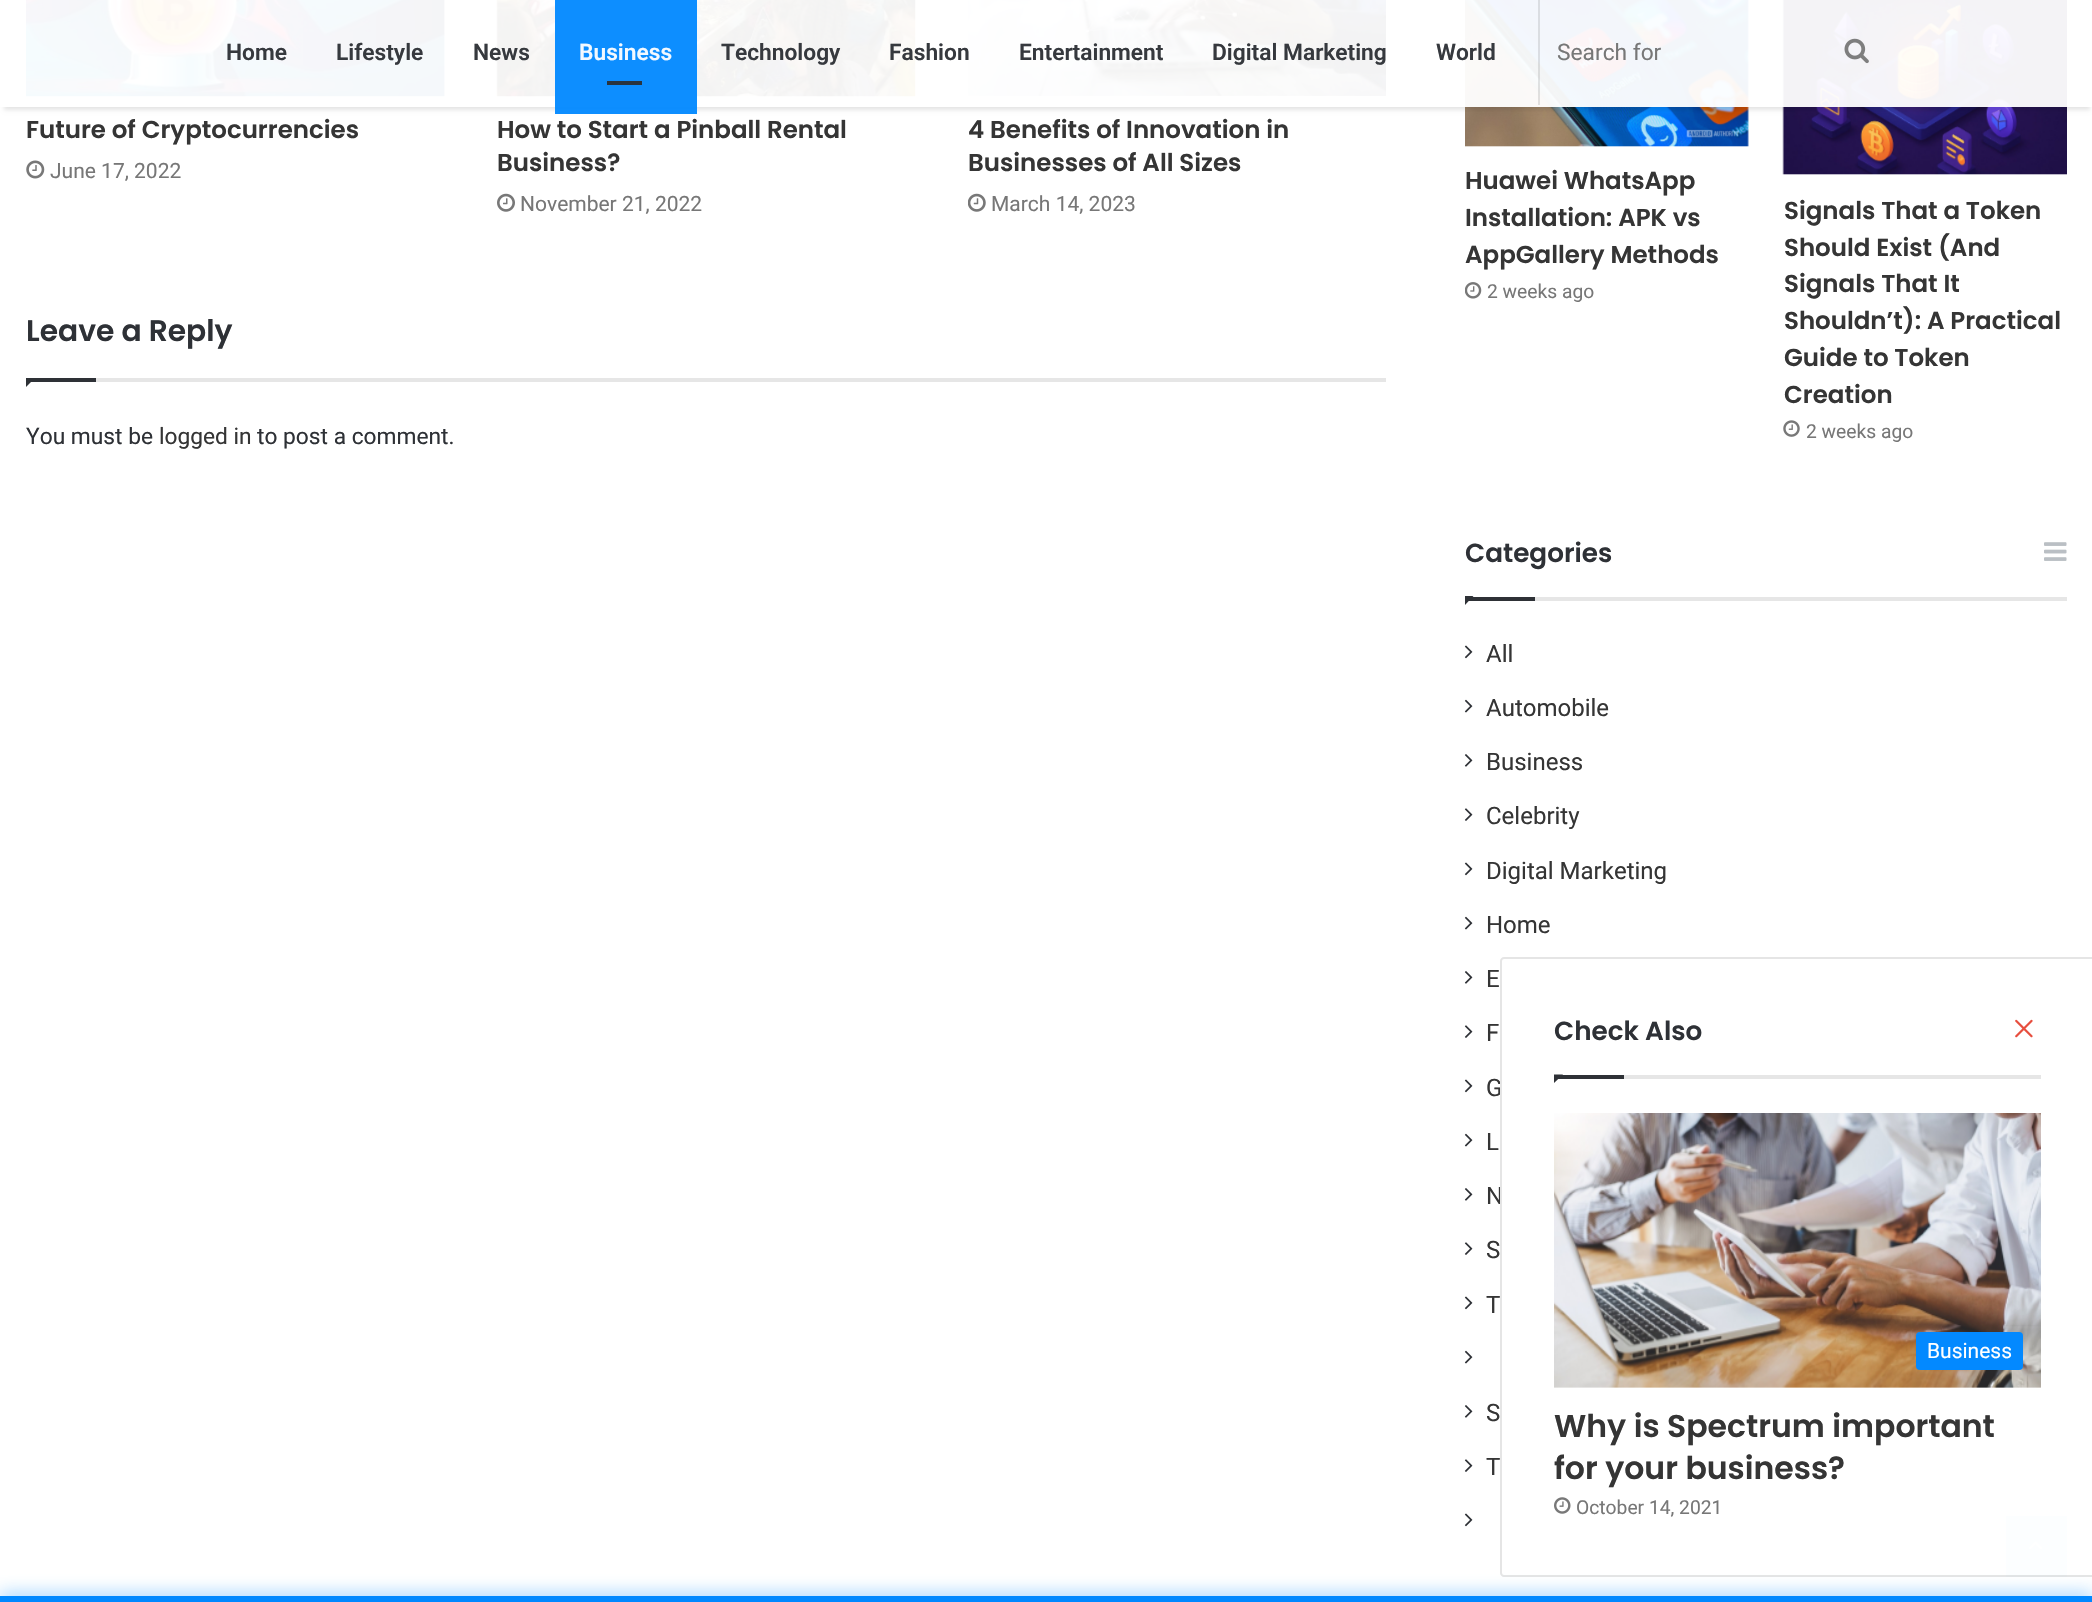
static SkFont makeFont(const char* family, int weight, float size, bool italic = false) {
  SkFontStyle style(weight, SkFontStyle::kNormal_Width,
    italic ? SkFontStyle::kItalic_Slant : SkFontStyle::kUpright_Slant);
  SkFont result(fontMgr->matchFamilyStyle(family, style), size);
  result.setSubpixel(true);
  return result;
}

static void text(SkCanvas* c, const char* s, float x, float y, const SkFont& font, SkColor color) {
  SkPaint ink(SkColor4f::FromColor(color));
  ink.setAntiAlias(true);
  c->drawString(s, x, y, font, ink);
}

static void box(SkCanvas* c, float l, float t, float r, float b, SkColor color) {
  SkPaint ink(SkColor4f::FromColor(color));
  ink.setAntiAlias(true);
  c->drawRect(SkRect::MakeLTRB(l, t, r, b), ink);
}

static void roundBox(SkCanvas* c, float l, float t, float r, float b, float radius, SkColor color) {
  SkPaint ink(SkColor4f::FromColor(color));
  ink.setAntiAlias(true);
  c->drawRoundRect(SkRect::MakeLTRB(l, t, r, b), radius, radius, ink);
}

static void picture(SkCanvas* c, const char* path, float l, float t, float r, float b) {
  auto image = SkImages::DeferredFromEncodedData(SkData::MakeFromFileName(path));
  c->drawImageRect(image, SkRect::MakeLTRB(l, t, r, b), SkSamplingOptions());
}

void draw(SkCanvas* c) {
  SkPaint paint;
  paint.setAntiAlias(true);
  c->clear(0xffffffff);
  picture(c, "img_02.png", 26, 0, 446, 97);
  picture(c, "img_04.png", 496, 0, 916, 97);
  picture(c, "img_06.png", 968, 0, 1387, 96);
  picture(c, "img_08.png", 1465, 0, 1749, 147);
  picture(c, "img_10.png", 1782, 0, 2067, 175);
  c->save();
  c->clipPath(SkPathBuilder(SkPathFillType::kEvenOdd).moveTo(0, 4).lineTo(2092, 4).lineTo(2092, 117).lineTo(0, 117).close().moveTo(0, 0).lineTo(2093, 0).lineTo(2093, 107).lineTo(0, 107).close().detach(), true);
  paint.setColor(0x1a000000);
  paint.setMaskFilter(SkMaskFilter::MakeBlur(kNormal_SkBlurStyle, 2));
  c->drawRect(SkRect::MakeLTRB(4, 11, 2090, 110), paint);
  paint.setMaskFilter(nullptr);
  c->restore();
  box(c, 4, 0, 2090, 107, 0xf2ffffff);
  SkFont face1 = makeFont("Roboto", 600, 22.75f);
  text(c, "Home", 226, 60, face1, 0xff36393e);
  text(c, "Lifestyle", 336, 60, face1, 0xff36393e);
  text(c, "News", 473, 60, face1, 0xff36393e);
  box(c, 555, 105, 697, 114, 0xf20088ff);
  box(c, 555, 0, 697, 105, 0xf20088ff);
  text(c, "Business", 579, 60, face1, 0xfff3f9ff);
  box(c, 607, 81, 642, 85, 0xff2a343e);
  text(c, "Technology", 721, 60, face1, 0xff36393e);
  text(c, "Fashion", 889, 60, face1, 0xff36393e);
  text(c, "Entertainment", 1019, 60, face1, 0xff36393e);
  text(c, "Digital Marketing", 1212, 60, face1, 0xff36393e);
  text(c, "World", 1436, 60, face1, 0xff36393e);
  box(c, 1538, 0, 1540, 105, 0x1a000000);
  SkFont face2 = makeFont("Roboto", 400, 22.75f);
  text(c, "Search for", 1557, 60, face2, 0xff777777);
  picture(c, "img_01.png", 1844, 38, 1869, 64);
  SkFont face3 = makeFont("Poppins", 600, 24.5f);
  text(c, "Future of Cryptocurrencies", 26, 138, face3, 0xff353535);
  picture(c, "img_03.png", 26, 160, 45, 179);
  SkFont face4 = makeFont("Roboto", 400, 21);
  text(c, "June 17, 2022", 50, 178, face4, 0xff777777);
  text(c, "How to Start a Pinball Rental", 497, 138, face3, 0xff353535);
  text(c, "Business?", 497, 171, face3, 0xff353535);
  picture(c, "img_05.png", 497, 193, 515, 212);
  text(c, "November 21, 2022", 520, 211, face4, 0xff777777);
  text(c, "4 Benefits of Innovation in", 968, 138, face3, 0xff353535);
  text(c, "Businesses of All Sizes", 968, 171, face3, 0xff353535);
  picture(c, "img_07.png", 968, 193, 986, 212);
  text(c, "March 14, 2023", 991, 211, face4, 0xff777777);
  box(c, 96, 378, 1386, 382, 0xffe6e6e6);
  SkFont face5 = makeFont("Poppins", 600, 29.75f);
  text(c, "Leave a Reply", 26, 341, face5, 0xff2e3136);
  paint.setColor(0xff2e3136);
  c->drawPath(SkPathBuilder().moveTo(26, 378).lineTo(35, 378).lineTo(26, 387).close().detach(), paint);
  box(c, 26, 378, 96, 382, 0xff2e3136);
  text(c, "You must be", 26, 444, face2, 0xff2e3136);
  text(c, "logged in", 159, 444, face2, 0xff353535);
  text(c, "to post a comment.", 257, 444, face2, 0xff2e3136);
  text(c, "Huawei WhatsApp", 1465, 189, face3, 0xff353535);
  text(c, "Installation: APK vs", 1465, 226, face3, 0xff353535);
  text(c, "AppGallery Methods", 1465, 263, face3, 0xff353535);
  picture(c, "img_09.png", 1465, 282, 1482, 299);
  SkFont face6 = makeFont("Roboto", 400, 19.25f);
  text(c, "2 weeks ago", 1487, 298, face6, 0xff777777);
  text(c, "Signals That a Token", 1784, 219, face3, 0xff353535);
  text(c, "Should Exist (And", 1784, 256, face3, 0xff353535);
  text(c, "Signals That It", 1784, 292, face3, 0xff353535);
  text(c, "Shouldn’t): A Practical", 1784, 329, face3, 0xff353535);
  text(c, "Guide to Token", 1784, 366, face3, 0xff353535);
  text(c, "Creation", 1784, 403, face3, 0xff353535);
  picture(c, "img_11.png", 1783, 420, 1800, 437);
  text(c, "2 weeks ago", 1806, 438, face6, 0xff777777);
  box(c, 1535, 597, 2067, 601, 0xffe6e6e6);
  SkFont face7 = makeFont("Poppins", 600, 26.25f);
  text(c, "Categories", 1465, 562, face7, 0xff2e3136);
  picture(c, "img_12.png", 2044, 542, 2067, 561);
  c->drawPath(SkPathBuilder().moveTo(1465, 596).lineTo(1473.5f, 596).lineTo(1465, 605).close().detach(), paint);
  box(c, 1465, 597, 1535, 601, 0xff2e3136);
  picture(c, "img_13.png", 1464, 645, 1473, 659);
  SkFont face8 = makeFont("Roboto", 400, 24);
  text(c, "All", 1486, 662, face8, 0xff353535);
  picture(c, "img_14.png", 1464, 699, 1473, 713);
  text(c, "Automobile", 1486, 716, face8, 0xff353535);
  picture(c, "img_15.png", 1464, 754, 1473, 767);
  text(c, "Business", 1486, 770, face8, 0xff353535);
  picture(c, "img_16.png", 1464, 808, 1473, 821);
  text(c, "Celebrity", 1486, 824, face8, 0xff353535);
  picture(c, "img_13.png", 1464, 862, 1473, 876);
  text(c, "Digital Marketing", 1486, 879, face8, 0xff353535);
  picture(c, "img_14.png", 1464, 916, 1473, 930);
  text(c, "Home", 1486, 933, face8, 0xff353535);
  picture(c, "img_15.png", 1464, 971, 1473, 984);
  text(c, "E", 1486, 987, face8, 0xff353535);
  picture(c, "img_16.png", 1464, 1025, 1473, 1038);
  text(c, "F", 1486, 1041, face8, 0xff353535);
  picture(c, "img_13.png", 1464, 1079, 1473, 1093);
  text(c, "G", 1486, 1096, face8, 0xff353535);
  picture(c, "img_14.png", 1464, 1133, 1473, 1147);
  text(c, "L", 1486, 1150, face8, 0xff353535);
  picture(c, "img_15.png", 1464, 1188, 1473, 1201);
  text(c, "N", 1486, 1204, face8, 0xff353535);
  picture(c, "img_16.png", 1464, 1242, 1473, 1255);
  text(c, "S", 1486, 1258, face8, 0xff353535);
  picture(c, "img_13.png", 1464, 1296, 1473, 1310);
  text(c, "T", 1486, 1313, face8, 0xff353535);
  picture(c, "img_14.png", 1464, 1350, 1473, 1364);
  picture(c, "img_15.png", 1464, 1405, 1473, 1418);
  text(c, "S", 1486, 1421, face8, 0xff353535);
  picture(c, "img_16.png", 1464, 1459, 1473, 1472);
  text(c, "T", 1486, 1475, face8, 0xff353535);
  picture(c, "img_13.png", 1464, 1513, 1473, 1527);
  box(c, 2006, 1516, 2067, 1577, 0xff0088ff);
  picture(c, "img_20.png", 2029, 1541, 2042, 1549);
  paint.setColor(0xfcffffff);
  c->drawPath(SkPathBuilder().moveTo(1504, 957).lineTo(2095, 957).lineTo(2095, 1577).lineTo(1504, 1577).cubicTo(1502, 1577, 1500, 1575, 1500, 1573).lineTo(1500, 961).cubicTo(1500, 959, 1502, 957, 1504, 957).close().detach(), paint);
  paint.setStyle(SkPaint::kStroke_Style);
  paint.setStrokeWidth(2);
  paint.setColor(0x1a000000);
  c->drawPath(SkPathBuilder().moveTo(1504, 958).lineTo(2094, 958).lineTo(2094, 1576).lineTo(1504, 1576).cubicTo(1502.5f, 1576, 1501, 1574.5f, 1501, 1573).lineTo(1501, 961).cubicTo(1501, 959.5f, 1502.5f, 958, 1504, 958).close().detach(), paint);
  box(c, 1624, 1075, 2041, 1079, 0xffe6e6e6);
  text(c, "Check Also", 1554, 1040, face7, 0xff2e3136);
  picture(c, "img_17.png", 2015, 1019, 2033, 1038);
  paint.setStyle(SkPaint::kFill_Style);
  paint.setColor(0xff2e3136);
  c->drawPath(SkPathBuilder().moveTo(1554, 1074.5f).lineTo(1563, 1074.5f).lineTo(1554, 1083).close().detach(), paint);
  box(c, 1554, 1075, 1624, 1079, 0xff2e3136);
  picture(c, "img_18.png", 1554, 1113, 2041, 1388);
  roundBox(c, 1916, 1332, 2023, 1370, 4, 0xff0389ff);
  text(c, "Business", 1927, 1358, face4, 0xffffffff);
  SkFont face9 = makeFont("Poppins", 600, 31.5f);
  text(c, "Why is Spectrum important", 1554, 1437, face9, 0xff353535);
  text(c, "for your business?", 1554, 1479, face9, 0xff353535);
  picture(c, "img_19.png", 1554, 1497, 1571, 1514);
  text(c, "October 14, 2021", 1576, 1514, face6, 0xff777777);
  paint.setColor(0xb30088ff);
  paint.setMaskFilter(SkMaskFilter::MakeBlur(kNormal_SkBlurStyle, 9));
  c->drawRect(SkRect::MakeLTRB(0, 1596, 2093, 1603), paint);
  paint.setMaskFilter(nullptr);
  box(c, 0, 1596, 2092, 1602, 0xff0088ff);
}
